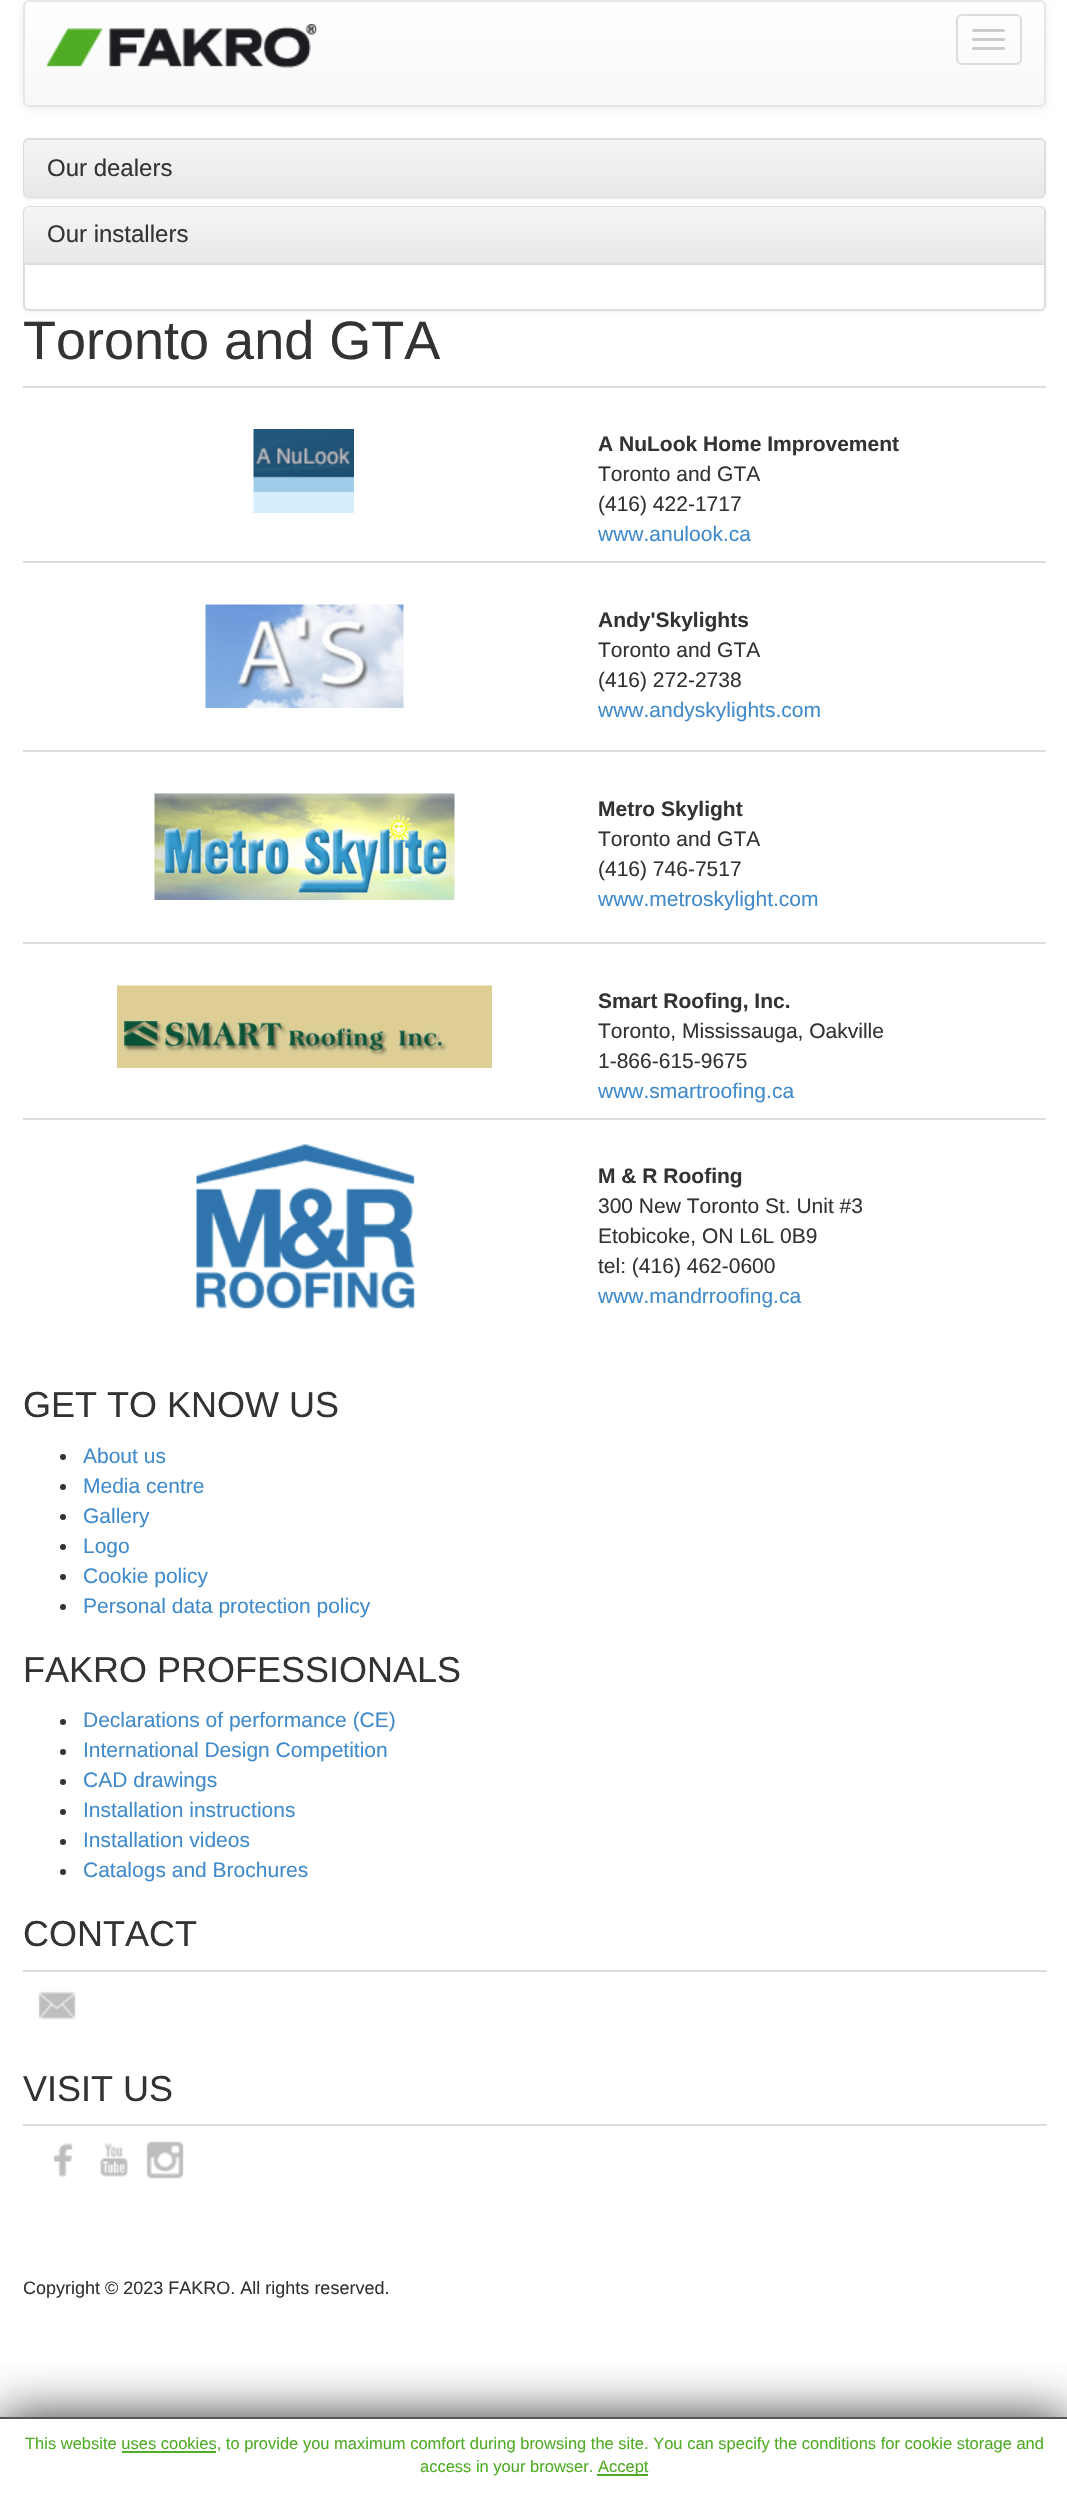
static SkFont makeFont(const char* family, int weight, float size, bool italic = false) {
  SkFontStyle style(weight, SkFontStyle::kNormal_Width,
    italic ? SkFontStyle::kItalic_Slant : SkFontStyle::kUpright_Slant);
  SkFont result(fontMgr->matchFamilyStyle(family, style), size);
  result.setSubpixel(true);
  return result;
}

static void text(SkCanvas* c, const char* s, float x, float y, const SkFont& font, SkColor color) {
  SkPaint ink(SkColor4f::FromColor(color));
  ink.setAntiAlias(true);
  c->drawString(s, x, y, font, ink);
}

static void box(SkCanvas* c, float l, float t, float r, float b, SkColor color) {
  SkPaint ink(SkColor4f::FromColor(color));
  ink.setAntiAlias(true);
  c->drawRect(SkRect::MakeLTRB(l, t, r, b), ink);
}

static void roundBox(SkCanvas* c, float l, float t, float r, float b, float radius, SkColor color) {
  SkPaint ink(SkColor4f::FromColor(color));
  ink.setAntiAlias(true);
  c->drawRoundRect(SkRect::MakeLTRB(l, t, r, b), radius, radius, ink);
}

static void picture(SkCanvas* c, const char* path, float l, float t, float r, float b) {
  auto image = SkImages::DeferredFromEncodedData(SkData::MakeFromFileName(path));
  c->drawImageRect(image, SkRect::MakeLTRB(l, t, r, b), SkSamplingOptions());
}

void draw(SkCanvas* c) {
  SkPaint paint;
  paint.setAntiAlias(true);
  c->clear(0xffffffff);
  paint.setColor(0x12000000);
  paint.setMaskFilter(SkMaskFilter::MakeBlur(kNormal_SkBlurStyle, 4));
  c->drawRoundRect(SkRect::MakeLTRB(23, 2, 1046, 108), 6, 6, paint);
  paint.setMaskFilter(nullptr);
  c->save();
  c->clipPath(SkPathBuilder().moveTo(29, 0).lineTo(1040, 0).cubicTo(1043.5f, 0, 1046, 2.5f, 1046, 6).lineTo(1046, 101).cubicTo(1046, 104.5f, 1043.5f, 107, 1040, 107).lineTo(29, 107).cubicTo(25.5f, 107, 23, 104.5f, 23, 101).lineTo(23, 6).cubicTo(23, 2.5f, 25.5f, 0, 29, 0).close().detach(), true);
  {
    const SkColor colors[] = {0xffffffff, 0xfff8f8f8};
    const float stops[] = {0, 1};
    const SkPoint ends[] = {{534, 1.5f}, {534, 105}};
    paint.setShader(SkGradientShader::MakeLinear(ends, colors, stops, 2, SkTileMode::kClamp));
    paint.setAlpha(255);
  }
  c->drawRect(SkRect::MakeLTRB(23, 2, 1046, 105), paint);
  c->restore();
  paint.setStyle(SkPaint::kStroke_Style);
  paint.setStrokeWidth(2);
  paint.setShader(nullptr);
  paint.setColor(0xffe7e7e7);
  c->drawRoundRect(SkRect::MakeLTRB(24, 1, 1045, 106), 5, 5, paint);
  picture(c, "img_01.png", 46, 24, 317, 68);
  paint.setColor(0xffdddddd);
  c->drawRoundRect(SkRect::MakeLTRB(957, 15, 1021, 64), 5, 5, paint);
  roundBox(c, 972, 29, 1005, 32, 1.5f, 0xffcccccc);
  roundBox(c, 972, 38, 1005, 41, 1.5f, 0xffcccccc);
  roundBox(c, 972, 47, 1005, 50, 1.5f, 0xffcccccc);
  paint.setStyle(SkPaint::kFill_Style);
  paint.setColor(0x0d000000);
  paint.setMaskFilter(SkMaskFilter::MakeBlur(kNormal_SkBlurStyle, 1.5f));
  c->drawRoundRect(SkRect::MakeLTRB(23, 140, 1046, 200), 6, 6, paint);
  paint.setMaskFilter(nullptr);
  paint.setColor(0xffffffff);
  c->drawRoundRect(SkRect::MakeLTRB(24, 139, 1045, 197), 5, 5, paint);
  paint.setStyle(SkPaint::kStroke_Style);
  paint.setColor(0xffdddddd);
  c->drawRoundRect(SkRect::MakeLTRB(24, 139, 1045, 197), 5, 5, paint);
  paint.setStyle(SkPaint::kFill_Style);
  {
    const SkColor colors[] = {0xfff5f5f5, 0xffe8e8e8};
    const float stops[] = {0, 1};
    const SkPoint ends[] = {{534, 139}, {534, 197}};
    paint.setShader(SkGradientShader::MakeLinear(ends, colors, stops, 2, SkTileMode::kClamp));
    paint.setAlpha(255);
  }
  c->drawRoundRect(SkRect::MakeLTRB(24, 140, 1044, 197), 5, 5, paint);
  SkFont face1 = makeFont("Liberation Sans", 400, 24);
  text(c, "Our dealers", 47, 176, face1, 0xff333333);
  paint.setShader(nullptr);
  paint.setColor(0x0d000000);
  paint.setMaskFilter(SkMaskFilter::MakeBlur(kNormal_SkBlurStyle, 1.5f));
  c->drawRoundRect(SkRect::MakeLTRB(23, 207, 1046, 312), 6, 6, paint);
  paint.setMaskFilter(nullptr);
  paint.setColor(0xffffffff);
  c->drawRoundRect(SkRect::MakeLTRB(24, 207, 1045, 310), 5, 5, paint);
  paint.setStyle(SkPaint::kStroke_Style);
  paint.setColor(0xffdddddd);
  c->drawRoundRect(SkRect::MakeLTRB(24, 207, 1045, 310), 5, 5, paint);
  paint.setStyle(SkPaint::kFill_Style);
  {
    const SkColor colors[] = {0xfff5f5f5, 0xffe8e8e8};
    const float stops[] = {0, 1};
    const SkPoint ends[] = {{534, 207}, {534, 263}};
    paint.setShader(SkGradientShader::MakeLinear(ends, colors, stops, 2, SkTileMode::kClamp));
    paint.setAlpha(255);
  }
  c->drawPath(SkPathBuilder().moveTo(29, 207).lineTo(1039, 207).cubicTo(1042, 207, 1044, 209, 1044, 212).lineTo(1044, 263).lineTo(24, 263).lineTo(24, 212).cubicTo(24, 209, 26, 207, 29, 207).close().detach(), paint);
  text(c, "Our installers", 47, 242, face1, 0xff333333);
  box(c, 24, 263, 1044, 265, 0xffdddddd);
  SkFont face2 = makeFont("Liberation Sans", 400, 54);
  text(c, "Toronto and GTA", 23, 359, face2, 0xff333333);
  picture(c, "img_02.png", 253, 429, 354, 513);
  box(c, 23, 386, 1046, 388, 0xffdddddd);
  SkFont face3 = makeFont("Liberation Sans", 700, 21);
  text(c, "A NuLook Home Improvement", 598, 451, face3, 0xff333333);
  SkFont face4 = makeFont("Liberation Sans", 400, 21);
  text(c, "Toronto and GTA", 598, 481, face4, 0xff333333);
  text(c, "(416) 422-1717", 598, 511, face4, 0xff333333);
  text(c, "www.anulook.ca", 598, 541, face4, 0xff428bca);
  picture(c, "img_03.png", 205, 604, 404, 708);
  box(c, 23, 561, 1046, 563, 0xffdddddd);
  text(c, "Andy'Skylights", 598, 627, face3, 0xff333333);
  text(c, "Toronto and GTA", 598, 657, face4, 0xff333333);
  text(c, "(416) 272-2738", 598, 687, face4, 0xff333333);
  text(c, "www.andyskylights.com", 598, 717, face4, 0xff428bca);
  picture(c, "img_04.png", 154, 793, 455, 900);
  box(c, 23, 750, 1046, 752, 0xffdddddd);
  text(c, "Metro Skylight", 598, 816, face3, 0xff333333);
  text(c, "Toronto and GTA", 598, 846, face4, 0xff333333);
  text(c, "(416) 746-7517", 598, 876, face4, 0xff333333);
  text(c, "www.metroskylight.com", 598, 906, face4, 0xff428bca);
  picture(c, "img_05.png", 117, 985, 492, 1068);
  box(c, 23, 942, 1046, 944, 0xffdddddd);
  text(c, "Smart Roofing, Inc.", 598, 1008, face3, 0xff333333);
  text(c, "Toronto, Mississauga, Oakville", 598, 1038, face4, 0xff333333);
  text(c, "1-866-615-9675", 598, 1068, face4, 0xff333333);
  text(c, "www.smartroofing.ca", 598, 1098, face4, 0xff428bca);
  picture(c, "img_06.png", 196, 1144, 415, 1309);
  box(c, 23, 1118, 1046, 1120, 0xffdddddd);
  text(c, "M & R Roofing", 598, 1183, face3, 0xff333333);
  text(c, "300 New Toronto St. Unit #3", 598, 1213, face4, 0xff333333);
  text(c, "Etobicoke, ON L6L 0B9", 598, 1243, face4, 0xff333333);
  text(c, "tel: (416) 462-0600", 598, 1273, face4, 0xff333333);
  text(c, "www.mandrroofing.ca", 598, 1303, face4, 0xff428bca);
  SkFont face5 = makeFont("Liberation Sans", 400, 36);
  text(c, "GET TO KNOW US", 23, 1417, face5, 0xff333333);
  paint.setShader(nullptr);
  paint.setColor(0xff333333);
  c->drawCircle(63, 1457, 3, paint);
  text(c, "About us", 83, 1463, face4, 0xff428bca);
  c->drawCircle(63, 1487, 3, paint);
  text(c, "Media centre", 83, 1493, face4, 0xff428bca);
  c->drawCircle(63, 1517, 3, paint);
  text(c, "Gallery", 83, 1523, face4, 0xff428bca);
  c->drawCircle(63, 1547, 3, paint);
  text(c, "Logo", 83, 1553, face4, 0xff428bca);
  c->drawCircle(63, 1577, 3, paint);
  text(c, "Cookie policy", 83, 1583, face4, 0xff428bca);
  c->drawCircle(63, 1607, 3, paint);
  text(c, "Personal data protection policy", 83, 1613, face4, 0xff428bca);
  text(c, "FAKRO PROFESSIONALS", 23, 1682, face5, 0xff333333);
  c->drawCircle(63, 1722, 3, paint);
  text(c, "Declarations of performance (CE)", 83, 1727, face4, 0xff428bca);
  c->drawCircle(63, 1752, 3, paint);
  text(c, "International Design Competition", 83, 1757, face4, 0xff428bca);
  c->drawCircle(63, 1782, 3, paint);
  text(c, "CAD drawings", 83, 1787, face4, 0xff428bca);
  c->drawCircle(63, 1812, 3, paint);
  text(c, "Installation instructions", 83, 1817, face4, 0xff428bca);
  c->drawCircle(63, 1842, 3, paint);
  text(c, "Installation videos", 83, 1847, face4, 0xff428bca);
  c->drawCircle(63, 1872, 3, paint);
  text(c, "Catalogs and Brochures", 83, 1877, face4, 0xff428bca);
  text(c, "CONTACT", 23, 1946, face5, 0xff333333);
  box(c, 23, 1970, 1047, 1972, 0xffdddddd);
  picture(c, "img_07.png", 38, 1991, 76, 2020);
  text(c, "VISIT US", 23, 2101, face5, 0xff333333);
  box(c, 23, 2124, 1047, 2126, 0xffdddddd);
  picture(c, "img_08.png", 53, 2143, 73, 2177);
  picture(c, "img_09.png", 100, 2143, 128, 2177);
  picture(c, "img_10.png", 146, 2141, 184, 2179);
  SkFont face6 = makeFont("Liberation Sans", 400, 18);
  text(c, "Copyright © 2023 FAKRO. All rights reserved.", 23, 2294, face6, 0xff333333);
  c->save();
  c->clipRect(SkRect::MakeLTRB(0, 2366, 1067, 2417));
  paint.setColor(0xcc000000);
  paint.setMaskFilter(SkMaskFilter::MakeBlur(kNormal_SkBlurStyle, 26));
  c->drawRect(SkRect::MakeLTRB(0, 2417, 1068, 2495), paint);
  paint.setMaskFilter(nullptr);
  c->restore();
  box(c, 0, 2417, 1067, 2419, 0xff555555);
  SkFont face7 = makeFont("Liberation Sans", 400, 16.5f);
  text(c, "This website uses cookies, to provide you maximum comfort during browsing the site. You can specify the conditions for cookie storage and", 25, 2449, face7, 0xff50ac25);
  box(c, 122, 2451, 216, 2453, 0xff50ac25);
  text(c, "access in your browser.", 420, 2472, face7, 0xff50ac25);
  box(c, 597, 2474, 648, 2476, 0xff50ac25);
  text(c, "Accept", 598, 2472, face7, 0xff50ac25);
}
